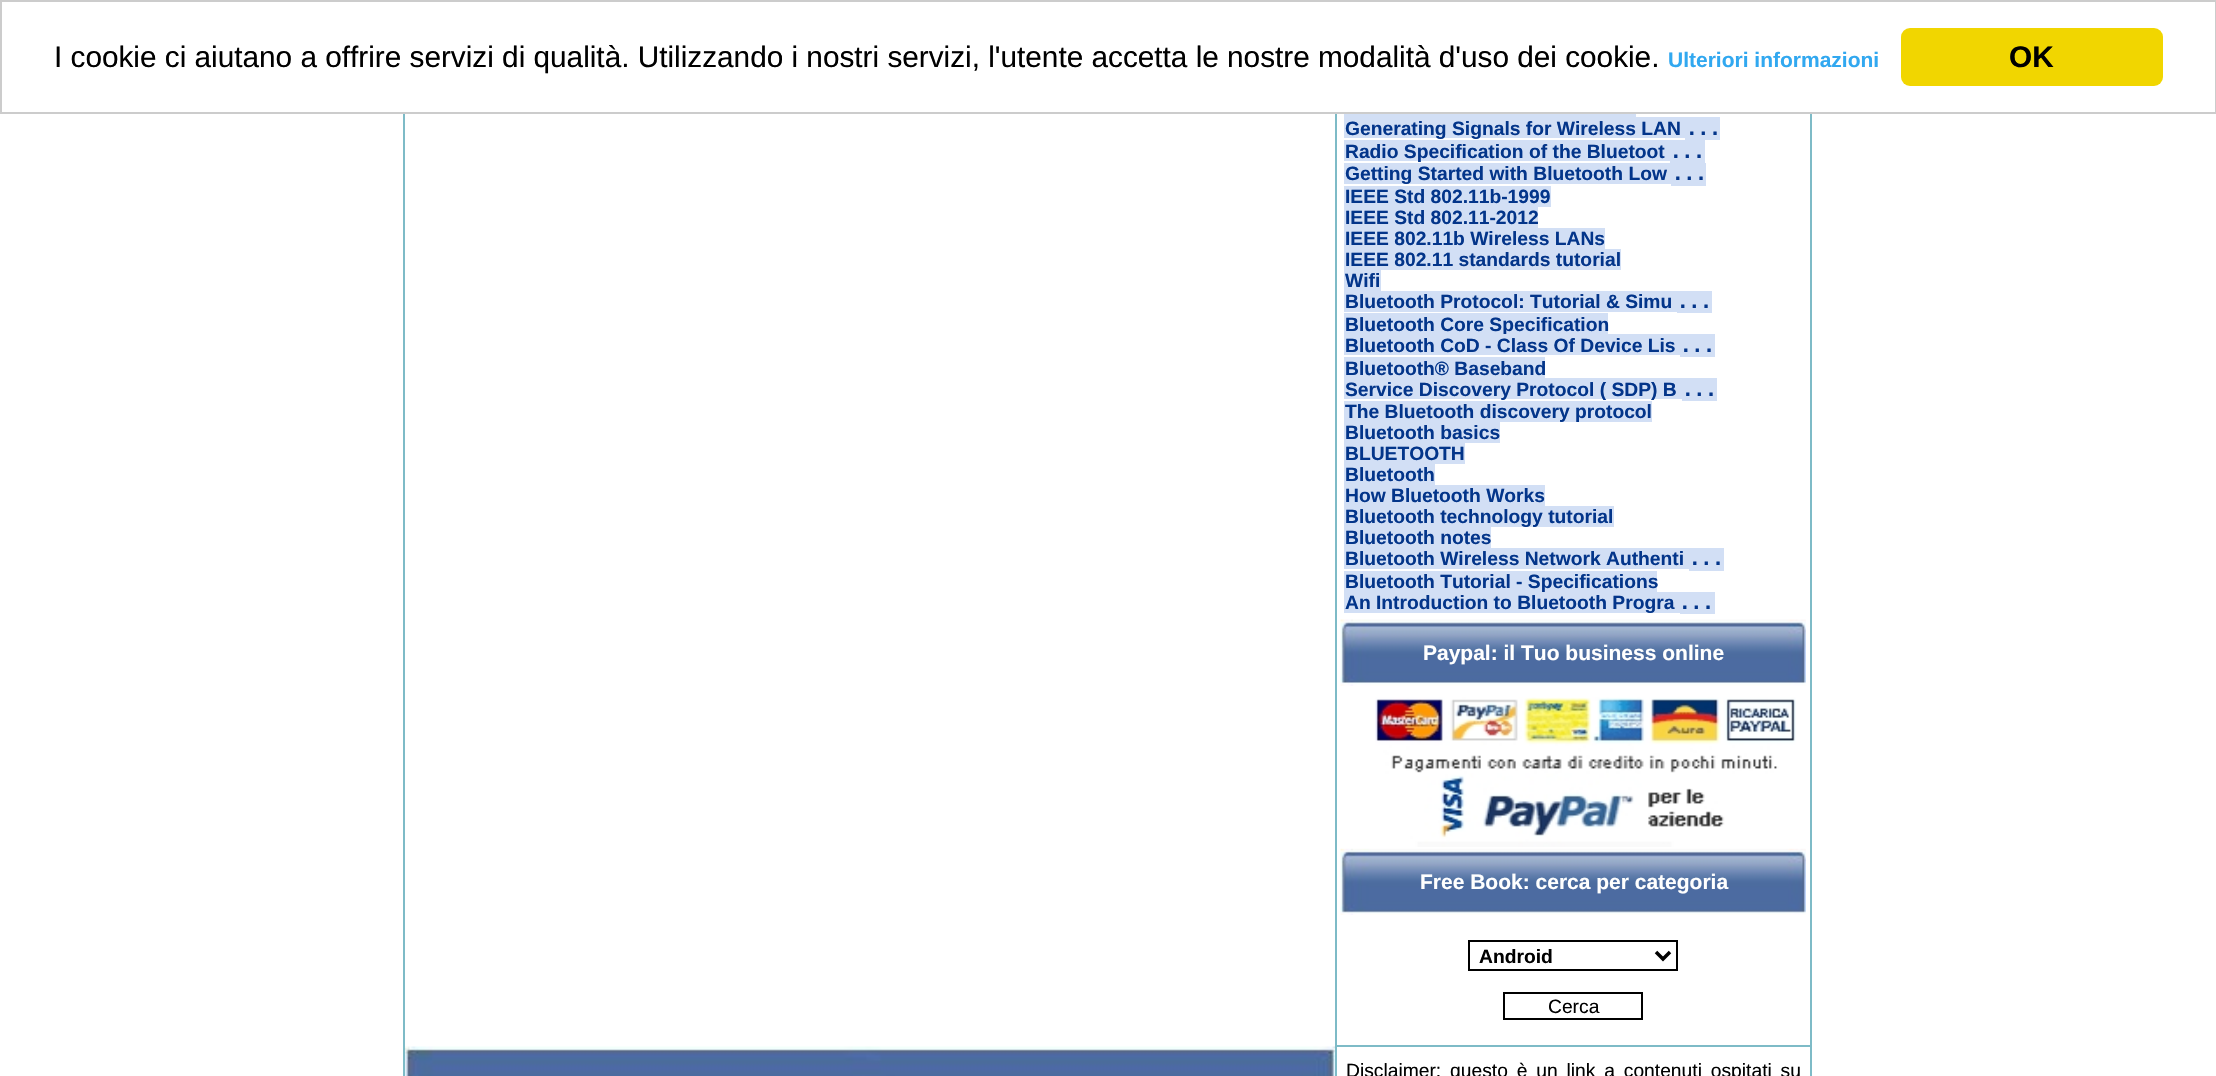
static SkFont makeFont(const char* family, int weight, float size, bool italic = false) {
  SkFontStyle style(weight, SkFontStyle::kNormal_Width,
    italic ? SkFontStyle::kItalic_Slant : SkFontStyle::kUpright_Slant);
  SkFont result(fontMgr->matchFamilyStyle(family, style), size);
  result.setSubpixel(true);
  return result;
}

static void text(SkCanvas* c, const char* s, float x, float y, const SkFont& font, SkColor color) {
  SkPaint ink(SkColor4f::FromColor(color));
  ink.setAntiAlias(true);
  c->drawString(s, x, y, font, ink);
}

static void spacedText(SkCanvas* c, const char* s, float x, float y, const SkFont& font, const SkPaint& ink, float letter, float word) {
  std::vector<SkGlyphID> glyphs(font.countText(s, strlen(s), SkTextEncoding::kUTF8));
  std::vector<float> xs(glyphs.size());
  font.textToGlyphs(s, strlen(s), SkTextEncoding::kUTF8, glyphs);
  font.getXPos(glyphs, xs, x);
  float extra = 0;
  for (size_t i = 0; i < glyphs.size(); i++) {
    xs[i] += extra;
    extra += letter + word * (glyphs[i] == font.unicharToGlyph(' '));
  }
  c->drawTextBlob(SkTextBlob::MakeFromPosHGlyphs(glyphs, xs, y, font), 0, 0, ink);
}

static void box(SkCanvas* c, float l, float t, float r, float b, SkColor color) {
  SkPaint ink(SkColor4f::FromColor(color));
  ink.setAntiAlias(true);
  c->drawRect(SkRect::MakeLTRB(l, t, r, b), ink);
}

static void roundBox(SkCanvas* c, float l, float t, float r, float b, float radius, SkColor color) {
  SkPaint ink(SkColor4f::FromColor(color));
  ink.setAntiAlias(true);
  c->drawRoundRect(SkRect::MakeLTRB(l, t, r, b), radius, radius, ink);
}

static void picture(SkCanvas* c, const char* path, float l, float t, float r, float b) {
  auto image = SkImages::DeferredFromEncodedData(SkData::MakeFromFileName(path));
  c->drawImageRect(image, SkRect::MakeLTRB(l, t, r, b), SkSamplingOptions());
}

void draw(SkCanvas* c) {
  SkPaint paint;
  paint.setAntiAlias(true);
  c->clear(0xffffffff);
  paint.setStyle(SkPaint::kStroke_Style);
  paint.setStrokeWidth(2);
  paint.setColor(0xffcccccc);
  c->drawRect(SkRect::MakeLTRB(1, 1, 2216, 113), paint);
  SkFont face1 = makeFont("Liberation Sans", 400, 29.75f);
  text(c, "I cookie ci aiutano a offrire servizi di qualità. Utilizzando i nostri servizi, l'utente accetta le nostre modalità d'uso dei cookie.", 54, 67, face1, 0xff000000);
  SkFont face2 = makeFont("Liberation Sans", 700, 21);
  text(c, "Ulteriori informazioni", 1668, 67, face2, 0xff31a8f0);
  roundBox(c, 1901, 28, 2163, 86, 9, 0xfff1d600);
  SkFont face3 = makeFont("Liberation Sans", 700, 29.75f);
  text(c, "OK", 2009, 67, face3, 0xff000000);
  box(c, 1810, 114, 1812, 1076, 0xff7ebbc7);
  box(c, 1335, 1045, 1337, 1076, 0xff7ebbc7);
  box(c, 1335, 1045, 1811, 1047, 0xff7ebbc7);
  box(c, 1335, 114, 1337, 1047, 0xff7ebbc7);
  box(c, 1344, 114, 1636, 117, 0xffd2dff5);
  box(c, 1344, 117, 1685, 138, 0xffd2dff5);
  SkFont face4 = makeFont("Liberation Sans", 700, 19.25f);
  text(c, "Generating Signals for Wireless LAN", 1345, 135, face4, 0xff03358a);
  box(c, 1685, 117, 1720, 140, 0xffd2dff5);
  SkFont face5 = makeFont("DejaVu Sans Mono", 700, 19.25f);
  text(c, "...", 1686, 135, face5, 0xff03358a);
  box(c, 1344, 140, 1670, 161, 0xffd2dff5);
  text(c, "Radio Specification of the Bluetoot", 1345, 158, face4, 0xff03358a);
  box(c, 1670, 140, 1705, 163, 0xffd2dff5);
  text(c, "...", 1670, 158, face5, 0xff03358a);
  box(c, 1344, 163, 1671, 184, 0xffd2dff5);
  text(c, "Getting Started with Bluetooth Low", 1345, 180, face4, 0xff03358a);
  box(c, 1671, 163, 1706, 186, 0xffd2dff5);
  text(c, "...", 1672, 180, face5, 0xff03358a);
  box(c, 1344, 186, 1551, 207, 0xffd2dff5);
  text(c, "IEEE Std 802.11b-1999", 1345, 203, face4, 0xff03358a);
  box(c, 1344, 207, 1538, 228, 0xffd2dff5);
  text(c, "IEEE Std 802.11-2012", 1345, 224, face4, 0xff03358a);
  box(c, 1344, 228, 1605, 249, 0xffd2dff5);
  text(c, "IEEE 802.11b Wireless LANs", 1345, 245, face4, 0xff03358a);
  box(c, 1344, 249, 1621, 270, 0xffd2dff5);
  text(c, "IEEE 802.11 standards tutorial", 1345, 266, face4, 0xff03358a);
  box(c, 1344, 270, 1381, 291, 0xffd2dff5);
  text(c, "Wifi", 1345, 287, face4, 0xff03358a);
  box(c, 1344, 291, 1677, 312, 0xffd2dff5);
  text(c, "Bluetooth Protocol: Tutorial & Simu", 1345, 308, face4, 0xff03358a);
  box(c, 1677, 291, 1712, 313, 0xffd2dff5);
  text(c, "...", 1677, 308, face5, 0xff03358a);
  box(c, 1344, 313, 1608, 334, 0xffd2dff5);
  text(c, "Bluetooth Core Specification", 1345, 331, face4, 0xff03358a);
  box(c, 1344, 334, 1680, 355, 0xffd2dff5);
  text(c, "Bluetooth CoD - Class Of Device Lis", 1345, 352, face4, 0xff03358a);
  box(c, 1680, 334, 1715, 357, 0xffd2dff5);
  text(c, "...", 1680, 352, face5, 0xff03358a);
  box(c, 1344, 357, 1545, 378, 0xffd2dff5);
  text(c, "Bluetooth® Baseband", 1345, 375, face4, 0xff03358a);
  box(c, 1344, 378, 1682, 399, 0xffd2dff5);
  text(c, "Service Discovery Protocol ( SDP) B", 1345, 396, face4, 0xff03358a);
  box(c, 1682, 378, 1717, 401, 0xffd2dff5);
  text(c, "...", 1682, 396, face5, 0xff03358a);
  box(c, 1344, 401, 1652, 422, 0xffd2dff5);
  text(c, "The Bluetooth discovery protocol", 1345, 418, face4, 0xff03358a);
  box(c, 1344, 422, 1500, 443, 0xffd2dff5);
  text(c, "Bluetooth basics", 1345, 439, face4, 0xff03358a);
  box(c, 1344, 443, 1465, 464, 0xffd2dff5);
  text(c, "BLUETOOTH", 1345, 460, face4, 0xff03358a);
  box(c, 1344, 464, 1435, 485, 0xffd2dff5);
  text(c, "Bluetooth", 1345, 481, face4, 0xff03358a);
  box(c, 1344, 485, 1545, 506, 0xffd2dff5);
  text(c, "How Bluetooth Works", 1345, 502, face4, 0xff03358a);
  box(c, 1344, 506, 1614, 527, 0xffd2dff5);
  text(c, "Bluetooth technology tutorial", 1345, 523, face4, 0xff03358a);
  box(c, 1344, 527, 1491, 548, 0xffd2dff5);
  text(c, "Bluetooth notes", 1345, 544, face4, 0xff03358a);
  box(c, 1344, 548, 1689, 569, 0xffd2dff5);
  text(c, "Bluetooth Wireless Network Authenti", 1345, 565, face4, 0xff03358a);
  box(c, 1689, 548, 1724, 571, 0xffd2dff5);
  text(c, "...", 1689, 565, face5, 0xff03358a);
  box(c, 1344, 571, 1657, 592, 0xffd2dff5);
  text(c, "Bluetooth Tutorial - Specifications", 1345, 588, face4, 0xff03358a);
  box(c, 1344, 592, 1680, 613, 0xffd2dff5);
  text(c, "An Introduction to Bluetooth Progra", 1345, 609, face4, 0xff03358a);
  box(c, 1680, 592, 1715, 614, 0xffd2dff5);
  text(c, "...", 1679, 609, face5, 0xff03358a);
  picture(c, "img_01.png", 1340, 619, 1806, 686);
  text(c, "Paypal: il Tuo business online", 1423, 660, face2, 0xffffffff);
  picture(c, "img_02.png", 1375, 697, 1796, 847);
  picture(c, "img_03.png", 1340, 848, 1806, 915);
  text(c, "Free Book: cerca per categoria", 1420, 889, face2, 0xffffffff);
  paint.setColor(0xff000000);
  c->drawRect(SkRect::MakeLTRB(1469, 941, 1677, 970), paint);
  paint.setStrokeWidth(3.5f);
  c->drawPath(SkPathBuilder().moveTo(1656, 952).lineTo(1663, 959).lineTo(1670, 952).detach(), paint);
  text(c, "Android", 1479, 963, face4, 0xff000000);
  paint.setStrokeWidth(2);
  c->drawRect(SkRect::MakeLTRB(1504, 993, 1642, 1019), paint);
  SkFont face6 = makeFont("Liberation Sans", 400, 19.25f);
  text(c, "Cerca", 1548, 1013, face6, 0xff000000);
  picture(c, "img_04.png", 405, 1046, 1335, 1076);
  box(c, 403, 114, 405, 1076, 0xff7ebbc7);
  paint.setStyle(SkPaint::kFill_Style);
  spacedText(c, "Disclaimer: questo è un link a contenuti ospitati su", 1346, 1077, face6, paint, 0, 3.5f);
}
